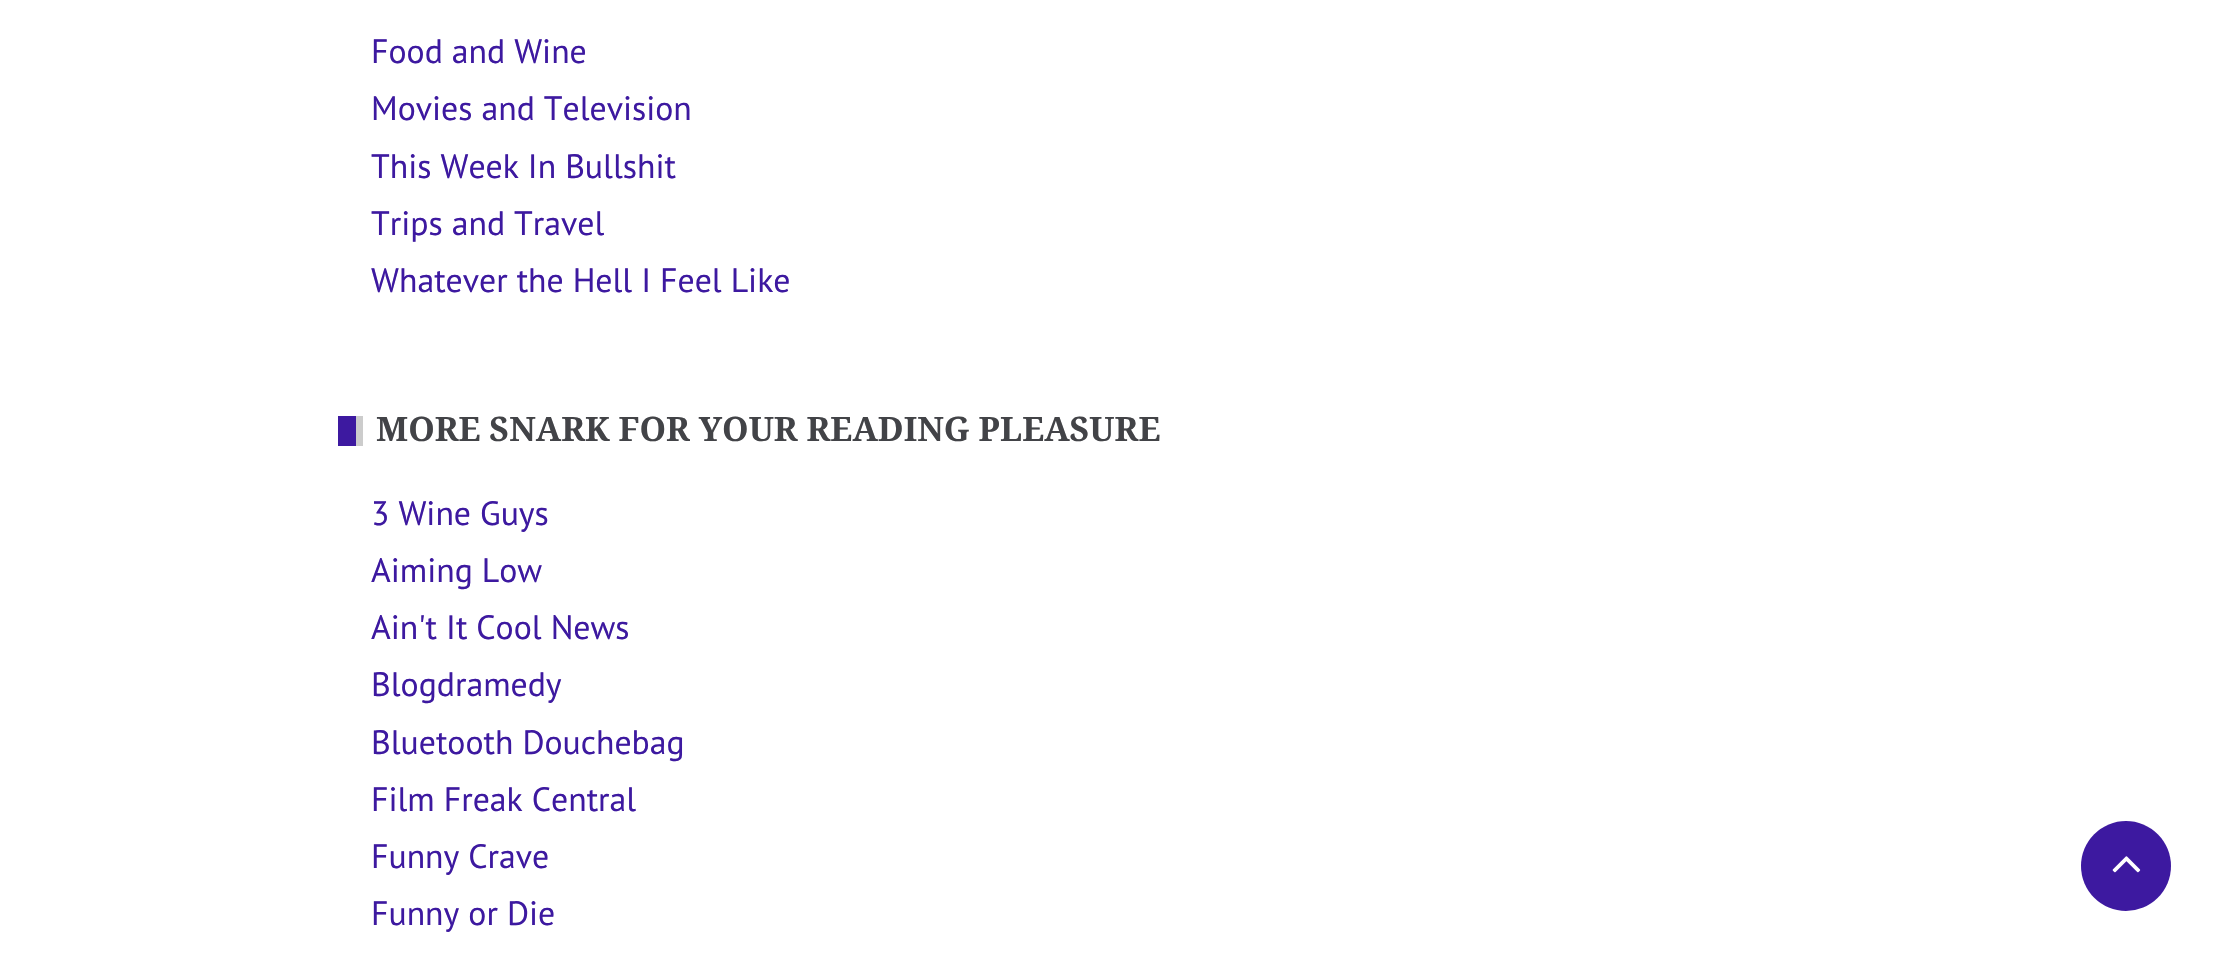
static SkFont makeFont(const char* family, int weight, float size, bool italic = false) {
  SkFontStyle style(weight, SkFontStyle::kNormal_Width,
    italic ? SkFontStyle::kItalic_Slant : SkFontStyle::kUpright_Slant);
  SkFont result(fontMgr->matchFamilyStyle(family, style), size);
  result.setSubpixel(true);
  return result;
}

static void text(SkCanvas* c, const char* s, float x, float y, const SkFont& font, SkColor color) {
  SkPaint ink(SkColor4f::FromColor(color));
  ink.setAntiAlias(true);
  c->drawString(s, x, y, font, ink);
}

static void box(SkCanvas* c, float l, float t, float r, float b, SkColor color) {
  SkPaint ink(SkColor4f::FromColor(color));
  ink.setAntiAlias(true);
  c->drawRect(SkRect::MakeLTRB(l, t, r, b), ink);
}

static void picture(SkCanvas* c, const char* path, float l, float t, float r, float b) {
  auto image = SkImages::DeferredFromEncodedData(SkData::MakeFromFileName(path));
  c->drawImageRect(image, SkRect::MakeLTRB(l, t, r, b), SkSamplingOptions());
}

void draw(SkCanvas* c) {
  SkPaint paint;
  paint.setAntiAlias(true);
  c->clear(0xffffffff);
  SkFont face1 = makeFont("PT Sans", 400, 33.75f);
  text(c, "Food and Wine", 371, 63, face1, 0xff3d19a0);
  text(c, "Movies and Television", 371, 120, face1, 0xff3d19a0);
  text(c, "This Week In Bullshit", 371, 178, face1, 0xff3d19a0);
  text(c, "Trips and Travel", 371, 235, face1, 0xff3d19a0);
  text(c, "Whatever the Hell I Feel Like", 371, 292, face1, 0xff3d19a0);
  box(c, 338, 416, 356, 446, 0xff3d19a0);
  box(c, 356, 416, 363, 446, 0xffcccccc);
  SkFont face2 = makeFont("Droid Serif", 700, 33.75f);
  text(c, "MORE SNARK FOR YOUR READING PLEASURE", 376, 441, face2, 0xff424347);
  text(c, "3 Wine Guys", 371, 525, face1, 0xff3d19a0);
  text(c, "Aiming Low", 371, 582, face1, 0xff3d19a0);
  text(c, "Ain't It Cool News", 371, 639, face1, 0xff3d19a0);
  text(c, "Blogdramedy", 371, 696, face1, 0xff3d19a0);
  text(c, "Bluetooth Douchebag", 371, 754, face1, 0xff3d19a0);
  text(c, "Film Freak Central", 371, 811, face1, 0xff3d19a0);
  text(c, "Funny Crave", 371, 868, face1, 0xff3d19a0);
  text(c, "Funny or Die", 371, 925, face1, 0xff3d19a0);
  paint.setColor(0xff3d19a0);
  c->drawCircle(2126, 866, 45, paint);
  picture(c, "img_01.png", 2112, 856, 2141, 873);
}
